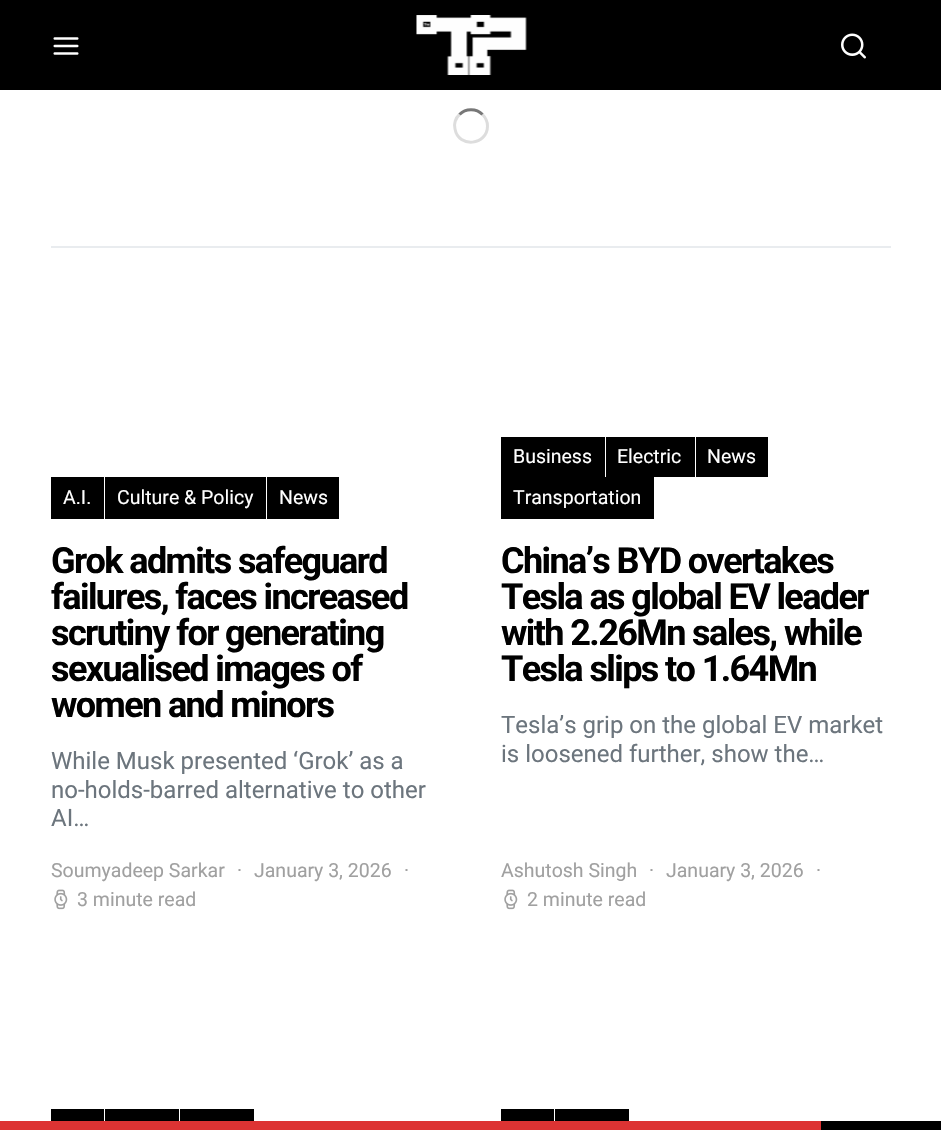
static SkFont makeFont(const char* family, int weight, float size, bool italic = false) {
  SkFontStyle style(weight, SkFontStyle::kNormal_Width,
    italic ? SkFontStyle::kItalic_Slant : SkFontStyle::kUpright_Slant);
  SkFont result(fontMgr->matchFamilyStyle(family, style), size);
  result.setSubpixel(true);
  return result;
}

static void text(SkCanvas* c, const char* s, float x, float y, const SkFont& font, SkColor color) {
  SkPaint ink(SkColor4f::FromColor(color));
  ink.setAntiAlias(true);
  c->drawString(s, x, y, font, ink);
}

static void spacedText(SkCanvas* c, const char* s, float x, float y, const SkFont& font, const SkPaint& ink, float letter, float word) {
  std::vector<SkGlyphID> glyphs(font.countText(s, strlen(s), SkTextEncoding::kUTF8));
  std::vector<float> xs(glyphs.size());
  font.textToGlyphs(s, strlen(s), SkTextEncoding::kUTF8, glyphs);
  font.getXPos(glyphs, xs, x);
  float extra = 0;
  for (size_t i = 0; i < glyphs.size(); i++) {
    xs[i] += extra;
    extra += letter + word * (glyphs[i] == font.unicharToGlyph(' '));
  }
  c->drawTextBlob(SkTextBlob::MakeFromPosHGlyphs(glyphs, xs, y, font), 0, 0, ink);
}

static void box(SkCanvas* c, float l, float t, float r, float b, SkColor color) {
  SkPaint ink(SkColor4f::FromColor(color));
  ink.setAntiAlias(true);
  c->drawRect(SkRect::MakeLTRB(l, t, r, b), ink);
}

static void picture(SkCanvas* c, const char* path, float l, float t, float r, float b) {
  auto image = SkImages::DeferredFromEncodedData(SkData::MakeFromFileName(path));
  c->drawImageRect(image, SkRect::MakeLTRB(l, t, r, b), SkSamplingOptions());
}

void draw(SkCanvas* c) {
  SkPaint paint;
  paint.setAntiAlias(true);
  c->clear(0xffffffff);
  box(c, 0, 0, 941, 90, 0xff000000);
  picture(c, "img_01.png", 53, 37, 79, 55);
  picture(c, "img_02.png", 416, 15, 527, 75);
  picture(c, "img_03.png", 841, 33, 866, 59);
  paint.setStyle(SkPaint::kStroke_Style);
  paint.setStrokeWidth(3);
  paint.setColor(0xff777777);
  c->drawPath(SkPathBuilder().moveTo(459.5f, 114.5f).cubicTo(465.5f, 108, 476.5f, 108, 482.5f, 114.5f).detach(), paint);
  paint.setColor(0x40777777);
  c->drawPath(SkPathBuilder().moveTo(482.5f, 114.5f).cubicTo(485.5f, 117.5f, 487.5f, 121.5f, 487.5f, 126).cubicTo(487.5f, 145.5f, 458.5f, 148.5f, 455, 129).cubicTo(453.5f, 124, 455.5f, 118, 459.5f, 114.5f).detach(), paint);
  box(c, 51, 246, 891, 248, 0xffe9ecef);
  box(c, 51, 477, 104, 519, 0xff000000);
  SkFont face1 = makeFont("Roboto", 400, 19.5f);
  text(c, "A.I.", 63, 504, face1, 0xffffffff);
  box(c, 105, 477, 266, 519, 0xff000000);
  text(c, "Culture & Policy", 117, 504, face1, 0xffffffff);
  box(c, 267, 477, 339, 519, 0xff000000);
  text(c, "News", 279, 504, face1, 0xffffffff);
  SkFont face2 = makeFont("Roboto", 700, 36);
  paint.setStyle(SkPaint::kFill_Style);
  paint.setColor(0xff000000);
  spacedText(c, "Grok admits safeguard", 51, 573, face2, paint, -1.6f, 0);
  spacedText(c, "failures, faces increased", 51, 609, face2, paint, -1.6f, 0);
  spacedText(c, "scrutiny for generating", 51, 645, face2, paint, -1.6f, 0);
  spacedText(c, "sexualised images of", 51, 681, face2, paint, -1.6f, 0);
  spacedText(c, "women and minors", 51, 717, face2, paint, -1.6f, 0);
  SkFont face3 = makeFont("Roboto", 400, 24);
  text(c, "While Musk presented ‘Grok’ as a", 51, 769, face3, 0xff6c757d);
  text(c, "no-holds-barred alternative to other", 51, 798, face3, 0xff6c757d);
  text(c, "AI…", 51, 826, face3, 0xff6c757d);
  text(c, "Soumyadeep Sarkar", 51, 877, face1, 0xffa0a0a0);
  text(c, "·", 237, 877, face1, 0xffa0a0a0);
  text(c, "January 3, 2026", 254, 877, face1, 0xffa0a0a0);
  text(c, "·", 404, 877, face1, 0xffa0a0a0);
  picture(c, "img_04.png", 54, 889, 68, 910);
  text(c, "3 minute read", 77, 906, face1, 0xffa0a0a0);
  box(c, 501, 437, 605, 477, 0xff000000);
  text(c, "Business", 513, 463, face1, 0xffffffff);
  box(c, 606, 437, 695, 477, 0xff000000);
  text(c, "Electric", 617, 463, face1, 0xffffffff);
  box(c, 696, 437, 768, 477, 0xff000000);
  text(c, "News", 707, 463, face1, 0xffffffff);
  box(c, 501, 477, 654, 519, 0xff000000);
  text(c, "Transportation", 513, 504, face1, 0xffffffff);
  spacedText(c, "China’s BYD overtakes", 501, 573, face2, paint, -1.6f, 0);
  spacedText(c, "Tesla as global EV leader", 501, 609, face2, paint, -1.6f, 0);
  spacedText(c, "with 2.26Mn sales, while", 501, 645, face2, paint, -1.6f, 0);
  spacedText(c, "Tesla slips to 1.64Mn", 501, 681, face2, paint, -1.6f, 0);
  text(c, "Tesla’s grip on the global EV market", 501, 733, face3, 0xff6c757d);
  text(c, "is loosened further, show the…", 501, 762, face3, 0xff6c757d);
  text(c, "Ashutosh Singh", 501, 877, face1, 0xffa0a0a0);
  text(c, "·", 649, 877, face1, 0xffa0a0a0);
  text(c, "January 3, 2026", 666, 877, face1, 0xffa0a0a0);
  text(c, "·", 816, 877, face1, 0xffa0a0a0);
  picture(c, "img_04.png", 504, 889, 518, 910);
  text(c, "2 minute read", 527, 906, face1, 0xffa0a0a0);
  box(c, 51, 1109, 104, 1121, 0xff000000);
  box(c, 105, 1109, 179, 1121, 0xff000000);
  box(c, 180, 1109, 254, 1121, 0xff000000);
  box(c, 501, 1109, 554, 1121, 0xff000000);
  box(c, 555, 1109, 629, 1121, 0xff000000);
  box(c, 821, 1121, 941, 1130, 0xff000000);
  box(c, 0, 1121, 821, 1130, 0xffdd3333);
}
